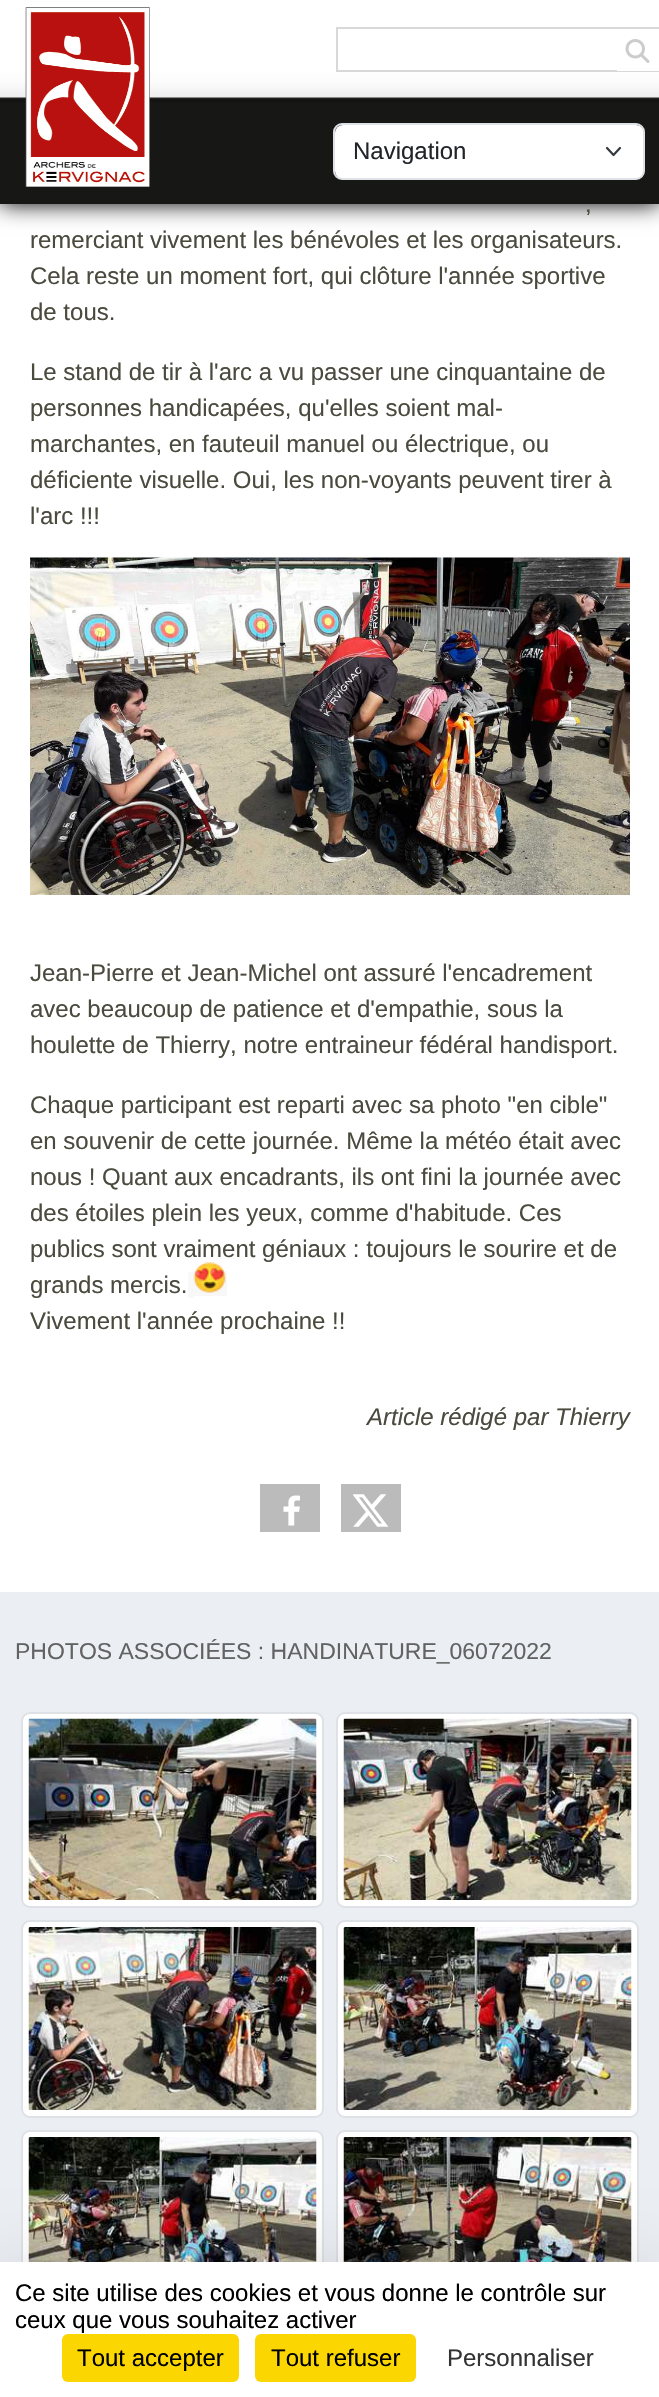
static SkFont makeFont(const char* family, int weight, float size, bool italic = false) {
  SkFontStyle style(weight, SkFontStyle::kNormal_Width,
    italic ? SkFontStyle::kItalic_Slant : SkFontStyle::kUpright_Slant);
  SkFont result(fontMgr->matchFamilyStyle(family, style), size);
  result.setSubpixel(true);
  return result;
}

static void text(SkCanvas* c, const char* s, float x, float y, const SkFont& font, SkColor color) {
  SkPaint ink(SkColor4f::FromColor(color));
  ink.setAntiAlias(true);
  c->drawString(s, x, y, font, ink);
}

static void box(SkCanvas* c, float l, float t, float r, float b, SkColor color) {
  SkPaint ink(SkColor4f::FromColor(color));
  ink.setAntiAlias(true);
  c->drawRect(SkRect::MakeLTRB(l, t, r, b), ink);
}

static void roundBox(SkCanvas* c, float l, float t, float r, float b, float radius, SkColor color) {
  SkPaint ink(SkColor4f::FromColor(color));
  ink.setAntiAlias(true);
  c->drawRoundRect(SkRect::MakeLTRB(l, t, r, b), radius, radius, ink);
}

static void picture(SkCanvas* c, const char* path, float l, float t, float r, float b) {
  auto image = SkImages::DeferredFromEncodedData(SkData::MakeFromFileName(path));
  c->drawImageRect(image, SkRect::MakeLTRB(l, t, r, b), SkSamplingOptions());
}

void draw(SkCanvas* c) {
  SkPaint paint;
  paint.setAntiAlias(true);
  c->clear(0xffffffff);
  paint.setColor(0xff000000);
  paint.setMaskFilter(SkMaskFilter::MakeBlur(kNormal_SkBlurStyle, 11));
  c->drawRect(SkRect::MakeLTRB(0, 0, 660, 204), paint);
  paint.setMaskFilter(nullptr);
  box(c, 0, 97, 659, 204, 0xff171715);
  picture(c, "img_01.png", 0, 0, 659, 102);
  picture(c, "img_02.png", 25, 7, 150, 187);
  paint.setStyle(SkPaint::kStroke_Style);
  paint.setStrokeWidth(2);
  paint.setColor(0xffd8d8d8);
  c->drawRect(SkRect::MakeLTRB(337, 28, 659, 71), paint);
  box(c, 617, 29, 659, 71, 0xffffffff);
  picture(c, "img_03.png", 625, 39, 650, 63);
  roundBox(c, 335, 125, 644, 179, 8, 0xffffffff);
  paint.setStrokeWidth(2.2f);
  paint.setStrokeCap(SkPaint::kRound_Cap);
  paint.setStrokeJoin(SkPaint::kRound_Join);
  paint.setColor(0xff343a40);
  c->drawPath(SkPathBuilder().moveTo(607, 148).lineTo(613.5f, 155).lineTo(620, 148).detach(), paint);
  paint.setStrokeWidth(2);
  paint.setStrokeCap(SkPaint::kButt_Cap);
  paint.setStrokeJoin(SkPaint::kMiter_Join);
  paint.setColor(0xffdee2e6);
  c->drawRoundRect(SkRect::MakeLTRB(334, 124, 644, 179), 8, 8, paint);
  SkFont face1 = makeFont("Liberation Sans", 400, 24);
  text(c, "Navigation", 353, 159, face1, 0xff212529);
  text(c, ",", 585, 212, face1, 0xff4a4a3e);
  text(c, "remerciant vivement les bénévoles et les organisateurs.", 30, 248, face1, 0xff4a4a3e);
  text(c, "Cela reste un moment fort, qui clôture l'année sportive", 30, 284, face1, 0xff4a4a3e);
  text(c, "de tous.", 30, 320, face1, 0xff4a4a3e);
  text(c, "Le stand de tir à l'arc a vu passer une cinquantaine de", 30, 380, face1, 0xff4a4a3e);
  text(c, "personnes handicapées, qu'elles soient mal-", 30, 416, face1, 0xff4a4a3e);
  text(c, "marchantes, en fauteuil manuel ou électrique, ou", 30, 452, face1, 0xff4a4a3e);
  text(c, "déficiente visuelle. Oui, les non-voyants peuvent tirer à", 30, 488, face1, 0xff4a4a3e);
  text(c, "l'arc !!!", 30, 524, face1, 0xff4a4a3e);
  picture(c, "img_04.png", 30, 557, 630, 895);
  text(c, "Jean-Pierre et Jean-Michel ont assuré l'encadrement", 30, 981, face1, 0xff4a4a3e);
  text(c, "avec beaucoup de patience et d'empathie, sous la", 30, 1017, face1, 0xff4a4a3e);
  text(c, "houlette de Thierry, notre entraineur fédéral handisport.", 30, 1053, face1, 0xff4a4a3e);
  text(c, "Chaque participant est reparti avec sa photo \"en cible\"", 30, 1113, face1, 0xff4a4a3e);
  text(c, "en souvenir de cette journée. Même la météo était avec", 30, 1149, face1, 0xff4a4a3e);
  text(c, "nous ! Quant aux encadrants, ils ont fini la journée avec", 30, 1185, face1, 0xff4a4a3e);
  text(c, "des étoiles plein les yeux, comme d'habitude. Ces", 30, 1221, face1, 0xff4a4a3e);
  text(c, "publics sont vraiment géniaux : toujours le sourire et de", 30, 1257, face1, 0xff4a4a3e);
  box(c, 188, 1272, 194, 1298, 0xfff8f8f8);
  box(c, 194, 1271, 227, 1296, 0xfff8f8f8);
  picture(c, "img_05.png", 193, 1262, 226, 1293);
  text(c, "grands mercis.", 30, 1293, face1, 0xff4a4a3e);
  text(c, "Vivement l'année prochaine !!", 30, 1329, face1, 0xff4a4a3e);
  SkFont face2 = makeFont("Liberation Sans", 400, 24, true);
  text(c, "Article rédigé par Thierry", 367, 1425, face2, 0xff4a4a3e);
  box(c, 260, 1484, 320, 1532, 0xffbbbbbb);
  picture(c, "img_06.png", 283, 1495, 300, 1526);
  box(c, 341, 1484, 401, 1532, 0xffbbbbbb);
  picture(c, "img_07.png", 353, 1494, 389, 1527);
  box(c, 0, 1592, 659, 2262, 0xffebeff4);
  SkFont face3 = makeFont("Liberation Sans", 400, 23);
  text(c, "PHOTOS ASSOCIÉES : HANDINATURE_06072022", 15, 1659, face3, 0xff626262);
  paint.setStyle(SkPaint::kFill_Style);
  paint.setColor(0xffffffff);
  c->drawRoundRect(SkRect::MakeLTRB(22, 1713, 323, 1907), 8, 8, paint);
  paint.setStyle(SkPaint::kStroke_Style);
  paint.setColor(0xffdee2e6);
  c->drawRoundRect(SkRect::MakeLTRB(22, 1713, 323, 1907), 8, 8, paint);
  picture(c, "img_08.png", 28, 1718, 317, 1900);
  paint.setStyle(SkPaint::kFill_Style);
  paint.setColor(0xffffffff);
  c->drawRoundRect(SkRect::MakeLTRB(337, 1713, 638, 1907), 8, 8, paint);
  paint.setStyle(SkPaint::kStroke_Style);
  paint.setColor(0xffdee2e6);
  c->drawRoundRect(SkRect::MakeLTRB(337, 1713, 638, 1907), 8, 8, paint);
  picture(c, "img_09.png", 343, 1718, 632, 1900);
  paint.setStyle(SkPaint::kFill_Style);
  paint.setColor(0xffffffff);
  c->drawRoundRect(SkRect::MakeLTRB(22, 1921, 323, 2117), 8, 8, paint);
  paint.setStyle(SkPaint::kStroke_Style);
  paint.setColor(0xffdee2e6);
  c->drawRoundRect(SkRect::MakeLTRB(22, 1921, 323, 2117), 8, 8, paint);
  picture(c, "img_10.png", 28, 1927, 317, 2110);
  paint.setStyle(SkPaint::kFill_Style);
  paint.setColor(0xffffffff);
  c->drawRoundRect(SkRect::MakeLTRB(337, 1921, 638, 2117), 8, 8, paint);
  paint.setStyle(SkPaint::kStroke_Style);
  paint.setColor(0xffdee2e6);
  c->drawRoundRect(SkRect::MakeLTRB(337, 1921, 638, 2117), 8, 8, paint);
  picture(c, "img_11.png", 343, 1927, 632, 2110);
  paint.setStyle(SkPaint::kFill_Style);
  paint.setColor(0xffffffff);
  c->drawRoundRect(SkRect::MakeLTRB(22, 2131, 323, 2326), 8, 8, paint);
  paint.setStyle(SkPaint::kStroke_Style);
  paint.setColor(0xffdee2e6);
  c->drawRoundRect(SkRect::MakeLTRB(22, 2131, 323, 2326), 8, 8, paint);
  picture(c, "img_12.png", 28, 2137, 317, 2262);
  paint.setStyle(SkPaint::kFill_Style);
  paint.setColor(0xffffffff);
  c->drawRoundRect(SkRect::MakeLTRB(337, 2131, 638, 2326), 8, 8, paint);
  paint.setStyle(SkPaint::kStroke_Style);
  paint.setColor(0xffdee2e6);
  c->drawRoundRect(SkRect::MakeLTRB(337, 2131, 638, 2326), 8, 8, paint);
  picture(c, "img_13.png", 343, 2137, 632, 2262);
  paint.setStyle(SkPaint::kFill_Style);
  paint.setColor(0x40000000);
  paint.setMaskFilter(SkMaskFilter::MakeBlur(kNormal_SkBlurStyle, 45));
  c->drawRect(SkRect::MakeLTRB(0, 2292, 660, 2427), paint);
  paint.setMaskFilter(nullptr);
  box(c, 0, 2262, 659, 2397, 0xffffffff);
  text(c, "Ce site utilise des cookies et vous donne le contrôle sur", 15, 2301, face1, 0xff000000);
  text(c, "ceux que vous souhaitez activer", 15, 2328, face1, 0xff000000);
  roundBox(c, 62, 2334, 239, 2382, 6, 0xfffbd600);
  text(c, "Tout accepter", 77, 2366, face1, 0xff000000);
  roundBox(c, 255, 2334, 416, 2382, 6, 0xfffbd600);
  text(c, "Tout refuser", 271, 2366, face1, 0xff000000);
  text(c, "Personnaliser", 447, 2366, face1, 0xff333333);
}
